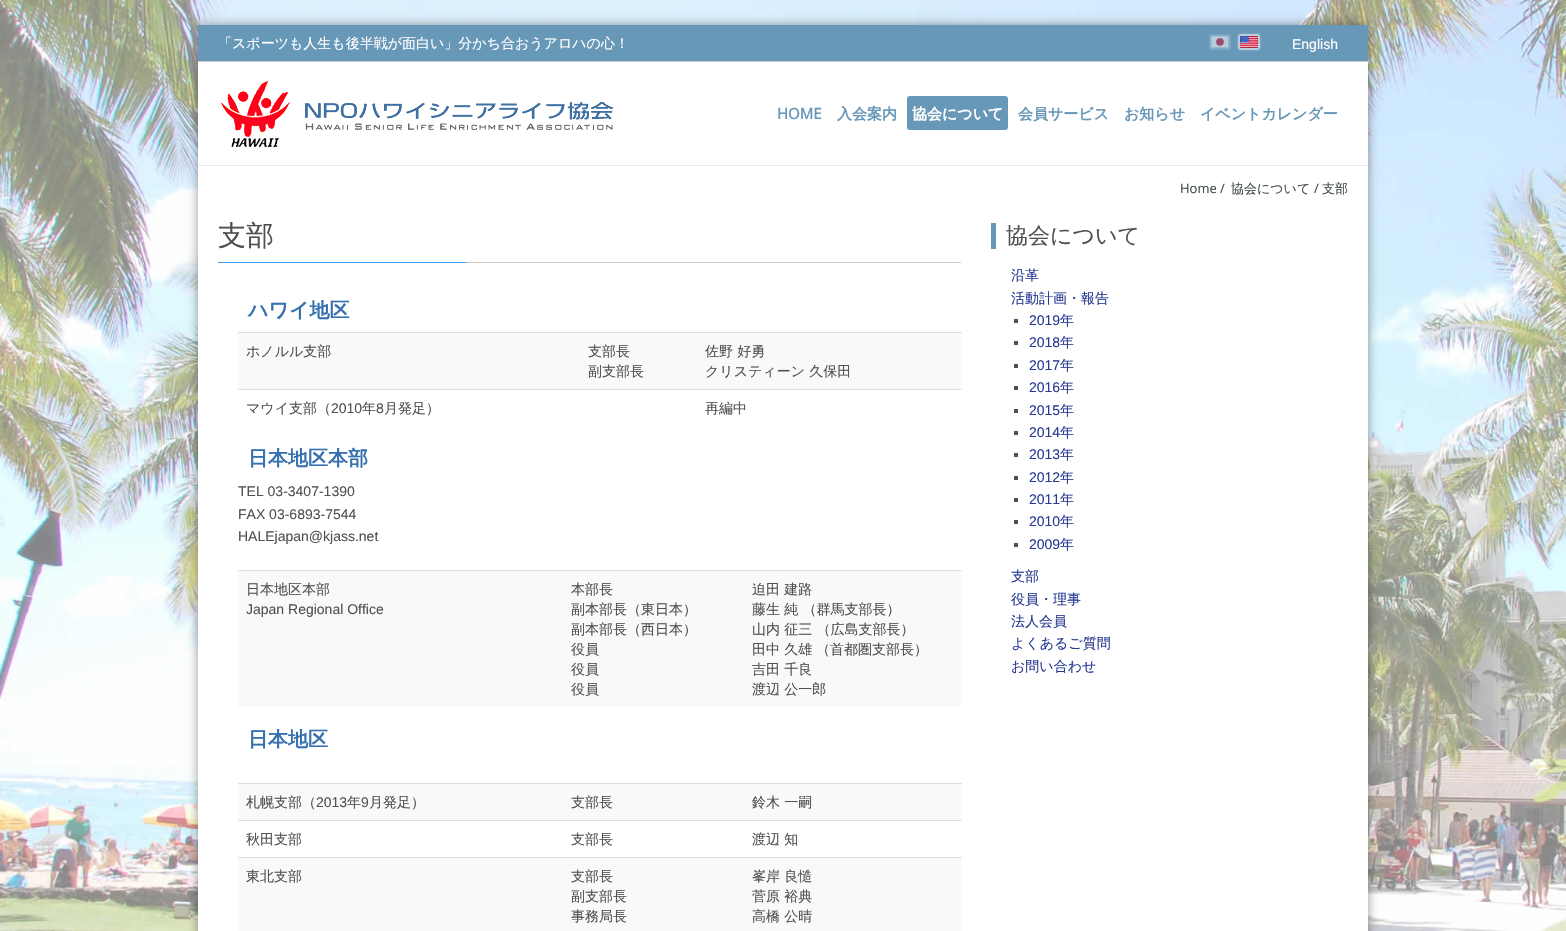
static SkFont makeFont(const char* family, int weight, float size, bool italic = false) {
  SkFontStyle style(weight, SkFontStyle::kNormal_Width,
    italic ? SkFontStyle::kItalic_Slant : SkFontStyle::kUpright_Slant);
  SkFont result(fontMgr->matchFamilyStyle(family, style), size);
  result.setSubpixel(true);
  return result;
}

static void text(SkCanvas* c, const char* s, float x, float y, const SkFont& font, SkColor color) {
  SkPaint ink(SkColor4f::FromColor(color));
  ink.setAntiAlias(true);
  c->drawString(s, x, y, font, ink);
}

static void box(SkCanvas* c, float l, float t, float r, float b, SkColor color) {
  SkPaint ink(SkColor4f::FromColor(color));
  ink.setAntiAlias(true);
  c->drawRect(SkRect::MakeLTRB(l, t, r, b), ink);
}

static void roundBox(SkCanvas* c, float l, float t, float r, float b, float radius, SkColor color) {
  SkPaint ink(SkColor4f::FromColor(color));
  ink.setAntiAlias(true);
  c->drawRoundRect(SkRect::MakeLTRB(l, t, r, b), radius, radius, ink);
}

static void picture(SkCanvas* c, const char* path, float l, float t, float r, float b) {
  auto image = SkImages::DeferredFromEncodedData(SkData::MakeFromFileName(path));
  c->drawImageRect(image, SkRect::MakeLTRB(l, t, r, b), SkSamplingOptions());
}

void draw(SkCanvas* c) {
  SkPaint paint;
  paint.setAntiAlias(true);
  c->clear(0xffffffff);
  picture(c, "img_01.png", 0, 0, 1566, 931);
  paint.setColor(0x66000000);
  paint.setMaskFilter(SkMaskFilter::MakeBlur(kNormal_SkBlurStyle, 5));
  c->drawRect(SkRect::MakeLTRB(198, 25, 1368, 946), paint);
  paint.setMaskFilter(nullptr);
  box(c, 198, 62, 1368, 931, 0xffffffff);
  box(c, 198, 165, 1368, 166, 0xffebebeb);
  box(c, 198, 25, 1368, 61, 0xff6898b8);
  box(c, 198, 61, 1368, 62, 0xffcccccc);
  SkFont face1 = makeFont("WenQuanYi Zen Hei", 500, 14);
  text(c, "「スポーツも人生も後半戦が面白い」分かち合おうアロハの心！", 218, 48, face1, 0xffffffff);
  paint.setStyle(SkPaint::kStroke_Style);
  paint.setStrokeWidth(2);
  paint.setColor(0xff7fa8c3);
  c->drawRoundRect(SkRect::MakeLTRB(1210, 35, 1230, 49), 2, 2, paint);
  paint.setStyle(SkPaint::kFill_Style);
  paint.setColor(0x66ffffff);
  paint.setMaskFilter(SkMaskFilter::MakeBlur(kNormal_SkBlurStyle, 1));
  c->drawRoundRect(SkRect::MakeLTRB(1238, 34, 1260, 50), 3, 3, paint);
  paint.setMaskFilter(nullptr);
  picture(c, "img_02.png", 1211, 36, 1229, 48);
  paint.setStyle(SkPaint::kStroke_Style);
  paint.setColor(0x4dffffff);
  c->drawRoundRect(SkRect::MakeLTRB(1239, 35, 1259, 49), 2, 2, paint);
  picture(c, "img_03.png", 1240, 36, 1258, 48);
  SkFont face2 = makeFont("Liberation Sans", 400, 14);
  text(c, "English", 1292, 49, face2, 0xffffffff);
  picture(c, "img_04.png", 220, 80, 613, 148);
  SkFont face3 = makeFont("Open Sans", 700, 15);
  text(c, "HOME", 777, 119, face3, 0xff6898b8);
  SkFont face4 = makeFont("WenQuanYi Zen Hei", 700, 15);
  text(c, "入会案内", 837, 119, face4, 0xff6898b8);
  roundBox(c, 907, 96, 1008, 130, 3, 0xff6898b8);
  text(c, "協会について", 912, 119, face4, 0xffffffff);
  text(c, "会員サービス", 1018, 119, face4, 0xff6898b8);
  text(c, "お知らせ", 1124, 119, face4, 0xff6898b8);
  text(c, "イベントカレンダー", 1200, 119, face4, 0xff6898b8);
  SkFont face5 = makeFont("Open Sans", 400, 13);
  text(c, "Home /", 1180, 193, face5, 0xff414c4b);
  SkFont face6 = makeFont("WenQuanYi Zen Hei", 500, 13);
  text(c, "協会について", 1231, 193, face6, 0xff414c4b);
  text(c, "/", 1314, 193, face5, 0xff414c4b);
  text(c, "支部", 1322, 193, face6, 0xff414c4b);
  box(c, 466, 262, 961, 263, 0xffcccccc);
  SkFont face7 = makeFont("WenQuanYi Zen Hei", 500, 28);
  text(c, "支部", 218, 245, face7, 0xff505050);
  box(c, 218, 262, 466, 263, 0xff3b9cf7);
  SkFont face8 = makeFont("WenQuanYi Zen Hei", 700, 20);
  text(c, "ハワイ地区", 248, 317, face8, 0xff3670af);
  box(c, 238, 333, 961, 389, 0xfff9f9f9);
  text(c, "ホノルル支部", 246, 356, face1, 0xff505050);
  text(c, "支部長", 588, 356, face1, 0xff505050);
  text(c, "副支部長", 588, 376, face1, 0xff505050);
  box(c, 238, 332, 962, 333, 0xffdddddd);
  text(c, "佐野 好勇", 705, 356, face1, 0xff505050);
  text(c, "クリスティーン 久保田", 705, 376, face1, 0xff505050);
  text(c, "マウイ支部（", 246, 413, face1, 0xff505050);
  text(c, "2010", 331, 413, face2, 0xff505050);
  text(c, "年", 362, 413, face1, 0xff505050);
  text(c, "8", 376, 413, face2, 0xff505050);
  text(c, "月発足）", 384, 413, face1, 0xff505050);
  box(c, 238, 389, 962, 390, 0xffdddddd);
  text(c, "再編中", 705, 413, face1, 0xff505050);
  text(c, "日本地区本部", 248, 465, face8, 0xff3670af);
  text(c, "TEL 03-3407-1390", 238, 496, face2, 0xff505050);
  text(c, "FAX 03-6893-7544", 238, 519, face2, 0xff505050);
  text(c, "HALEjapan@kjass.net", 238, 541, face2, 0xff505050);
  box(c, 238, 571, 961, 707, 0xfff9f9f9);
  text(c, "日本地区本部", 246, 594, face1, 0xff505050);
  text(c, "Japan Regional Office", 246, 614, face2, 0xff505050);
  text(c, "本部長", 571, 594, face1, 0xff505050);
  text(c, "副本部長（東日本）", 571, 614, face1, 0xff505050);
  text(c, "副本部長（西日本）", 571, 634, face1, 0xff505050);
  text(c, "役員", 571, 654, face1, 0xff505050);
  text(c, "役員", 571, 674, face1, 0xff505050);
  text(c, "役員", 571, 694, face1, 0xff505050);
  box(c, 238, 570, 962, 571, 0xffdddddd);
  text(c, "迫田 建路", 752, 594, face1, 0xff505050);
  text(c, "藤生 純 （群馬支部長）", 752, 614, face1, 0xff505050);
  text(c, "山内 征三 （広島支部長）", 752, 634, face1, 0xff505050);
  text(c, "田中 久雄", 752, 654, face1, 0xff505050);
  text(c, "（首都圏支部長）", 816, 654, face1, 0xff505050);
  text(c, "吉田 千良", 752, 674, face1, 0xff505050);
  text(c, "渡辺 公一郎", 752, 694, face1, 0xff505050);
  text(c, "日本地区", 248, 746, face8, 0xff3670af);
  box(c, 238, 784, 961, 820, 0xfff9f9f9);
  text(c, "札幌支部（", 246, 807, face1, 0xff505050);
  text(c, "2013", 316, 807, face2, 0xff505050);
  text(c, "年", 347, 807, face1, 0xff505050);
  text(c, "9", 361, 807, face2, 0xff505050);
  text(c, "月発足）", 369, 807, face1, 0xff505050);
  text(c, "支部長", 571, 807, face1, 0xff505050);
  box(c, 238, 783, 962, 784, 0xffdddddd);
  text(c, "鈴木 一嗣", 752, 807, face1, 0xff505050);
  text(c, "秋田支部", 246, 844, face1, 0xff505050);
  text(c, "支部長", 571, 844, face1, 0xff505050);
  box(c, 238, 820, 962, 821, 0xffdddddd);
  text(c, "渡辺 知", 752, 844, face1, 0xff505050);
  box(c, 238, 858, 961, 931, 0xfff9f9f9);
  text(c, "東北支部", 246, 881, face1, 0xff505050);
  text(c, "支部長", 571, 881, face1, 0xff505050);
  text(c, "副支部長", 571, 901, face1, 0xff505050);
  text(c, "事務局長", 571, 921, face1, 0xff505050);
  box(c, 238, 857, 962, 858, 0xffdddddd);
  text(c, "峯岸 良慥", 752, 881, face1, 0xff505050);
  text(c, "菅原 裕典", 752, 901, face1, 0xff505050);
  text(c, "高橋 公晴", 752, 921, face1, 0xff505050);
  box(c, 991, 223, 996, 249, 0xff6898b8);
  SkFont face9 = makeFont("WenQuanYi Zen Hei", 500, 22);
  text(c, "協会について", 1006, 243, face9, 0xff505050);
  text(c, "沿革", 1011, 280, face1, 0xff283993);
  text(c, "活動計画・報告", 1011, 303, face1, 0xff283993);
  box(c, 1014, 319, 1018, 323, 0xff505050);
  text(c, "2019", 1029, 325, face2, 0xff283993);
  text(c, "年", 1060, 325, face1, 0xff283993);
  box(c, 1014, 341, 1018, 345, 0xff505050);
  text(c, "2018", 1029, 347, face2, 0xff283993);
  text(c, "年", 1060, 347, face1, 0xff283993);
  box(c, 1014, 364, 1018, 368, 0xff505050);
  text(c, "2017", 1029, 370, face2, 0xff283993);
  text(c, "年", 1060, 370, face1, 0xff283993);
  box(c, 1014, 386, 1018, 390, 0xff505050);
  text(c, "2016", 1029, 392, face2, 0xff283993);
  text(c, "年", 1060, 392, face1, 0xff283993);
  box(c, 1014, 409, 1018, 413, 0xff505050);
  text(c, "2015", 1029, 415, face2, 0xff283993);
  text(c, "年", 1060, 415, face1, 0xff283993);
  box(c, 1014, 431, 1018, 435, 0xff505050);
  text(c, "2014", 1029, 437, face2, 0xff283993);
  text(c, "年", 1060, 437, face1, 0xff283993);
  box(c, 1014, 453, 1018, 457, 0xff505050);
  text(c, "2013", 1029, 459, face2, 0xff283993);
  text(c, "年", 1060, 459, face1, 0xff283993);
  box(c, 1014, 476, 1018, 480, 0xff505050);
  text(c, "2012", 1029, 482, face2, 0xff283993);
  text(c, "年", 1060, 482, face1, 0xff283993);
  box(c, 1014, 498, 1018, 502, 0xff505050);
  text(c, "2011", 1029, 504, face2, 0xff283993);
  text(c, "年", 1060, 504, face1, 0xff283993);
  box(c, 1014, 520, 1018, 524, 0xff505050);
  text(c, "2010", 1029, 526, face2, 0xff283993);
  text(c, "年", 1060, 526, face1, 0xff283993);
  box(c, 1014, 543, 1018, 547, 0xff505050);
  text(c, "2009", 1029, 549, face2, 0xff283993);
  text(c, "年", 1060, 549, face1, 0xff283993);
  text(c, "支部", 1011, 581, face1, 0xff283993);
  text(c, "役員・理事", 1011, 604, face1, 0xff283993);
  text(c, "法人会員", 1011, 626, face1, 0xff283993);
  text(c, "よくあるご質問", 1011, 648, face1, 0xff283993);
  text(c, "お問い合わせ", 1011, 671, face1, 0xff283993);
}
